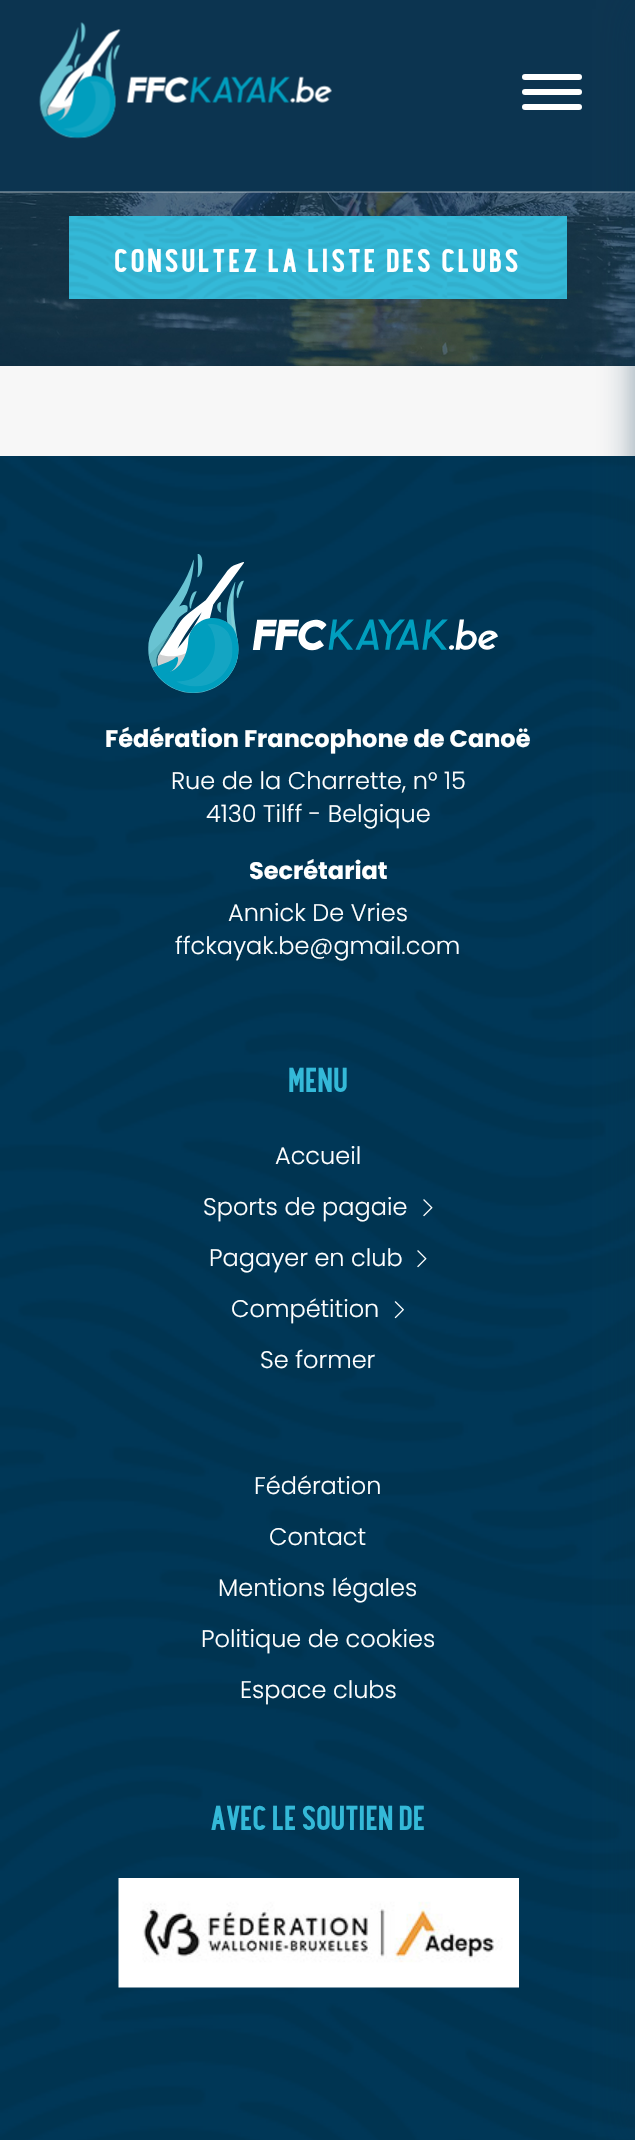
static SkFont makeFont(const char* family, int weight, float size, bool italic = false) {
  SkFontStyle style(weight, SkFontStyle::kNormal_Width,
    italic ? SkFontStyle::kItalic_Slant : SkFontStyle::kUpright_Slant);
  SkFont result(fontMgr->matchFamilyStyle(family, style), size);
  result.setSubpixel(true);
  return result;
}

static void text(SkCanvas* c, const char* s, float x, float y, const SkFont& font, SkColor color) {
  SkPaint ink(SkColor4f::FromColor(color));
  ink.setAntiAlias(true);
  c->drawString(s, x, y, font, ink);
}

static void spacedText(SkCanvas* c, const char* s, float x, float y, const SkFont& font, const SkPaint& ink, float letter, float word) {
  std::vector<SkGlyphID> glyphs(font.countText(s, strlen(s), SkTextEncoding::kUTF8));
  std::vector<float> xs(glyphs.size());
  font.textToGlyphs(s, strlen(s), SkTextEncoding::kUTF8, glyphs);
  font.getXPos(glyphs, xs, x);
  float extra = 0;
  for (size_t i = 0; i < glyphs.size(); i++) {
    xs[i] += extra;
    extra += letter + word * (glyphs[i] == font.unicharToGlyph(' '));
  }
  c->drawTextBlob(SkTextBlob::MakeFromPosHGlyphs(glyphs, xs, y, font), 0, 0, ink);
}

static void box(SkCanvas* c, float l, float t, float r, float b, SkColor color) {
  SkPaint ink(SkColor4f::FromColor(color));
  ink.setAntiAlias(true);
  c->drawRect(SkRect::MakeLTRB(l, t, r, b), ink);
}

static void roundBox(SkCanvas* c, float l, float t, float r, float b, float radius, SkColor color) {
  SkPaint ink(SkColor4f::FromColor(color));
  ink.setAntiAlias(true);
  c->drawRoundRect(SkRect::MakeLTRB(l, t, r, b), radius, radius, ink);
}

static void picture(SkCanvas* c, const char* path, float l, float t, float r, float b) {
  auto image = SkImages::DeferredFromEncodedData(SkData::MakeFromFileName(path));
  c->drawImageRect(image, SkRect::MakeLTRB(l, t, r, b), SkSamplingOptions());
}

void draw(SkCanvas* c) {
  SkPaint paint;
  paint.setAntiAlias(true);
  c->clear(0xffffffff);
  box(c, 0, 0, 635, 192, 0xff0c3450);
  picture(c, "img_02.png", 0, 192, 635, 366);
  box(c, 0, 191, 635, 193, 0x4dffffff);
  picture(c, "img_01.png", 39, 22, 332, 139);
  box(c, 0, 366, 635, 456, 0xfff7f7f7);
  picture(c, "img_04.png", 0, 456, 635, 2140);
  paint.setColor(0x990c3450);
  paint.setMaskFilter(SkMaskFilter::MakeBlur(kNormal_SkBlurStyle, 20));
  c->drawRect(SkRect::MakeLTRB(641, 9, 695, 2132), paint);
  paint.setMaskFilter(nullptr);
  roundBox(c, 522, 89, 582, 95, 3, 0xffffffff);
  roundBox(c, 522, 74, 582, 80, 3, 0xffffffff);
  roundBox(c, 522, 104, 582, 110, 3, 0xffffffff);
  box(c, 69, 216, 567, 299, 0xff34b9d8);
  picture(c, "img_03.png", 69, 216, 567, 299);
  SkFont face1 = makeFont("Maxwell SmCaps", 700, 28.5f);
  paint.setColor(0xffffffff);
  spacedText(c, "CONSULTEZ LA LISTE DES CLUBS", 114, 272, face1, paint, 2.85f, 0);
  picture(c, "img_05.png", 148, 554, 498, 693);
  SkFont face2 = makeFont("Poppins", 700, 24);
  text(c, "Fédération Francophone de Canoë", 105, 747, face2, 0xffffffff);
  SkFont face3 = makeFont("Poppins", 300, 24);
  text(c, "Rue de la Charrette, n° 15", 171, 789, face3, 0xffffffff);
  text(c, "4130 Tilff - Belgique", 206, 822, face3, 0xffffffff);
  text(c, "Secrétariat", 249, 879, face2, 0xffffffff);
  text(c, "Annick De Vries", 228, 921, face3, 0xffffffff);
  text(c, "ffckayak.be@gmail.com", 175, 954, face3, 0xffffffff);
  SkFont face4 = makeFont("Maxwell SmCaps", 700, 30);
  text(c, "MENU", 288, 1092, face4, 0xff34b9d8);
  text(c, "Accueil", 275, 1164, face3, 0xffffffff);
  text(c, "Sports de pagaie", 203, 1215, face3, 0xffffffff);
  picture(c, "img_06.png", 423, 1199, 433, 1217);
  text(c, "Pagayer en club", 209, 1266, face3, 0xffffffff);
  picture(c, "img_07.png", 417, 1250, 427, 1268);
  text(c, "Compétition", 231, 1317, face3, 0xffffffff);
  picture(c, "img_08.png", 394, 1301, 404, 1319);
  text(c, "Se former", 260, 1368, face3, 0xffffffff);
  text(c, "Fédération", 254, 1494, face3, 0xffffffff);
  text(c, "Contact", 269, 1545, face3, 0xffffffff);
  text(c, "Mentions légales", 218, 1596, face3, 0xffffffff);
  text(c, "Politique de cookies", 201, 1647, face3, 0xffffffff);
  text(c, "Espace clubs", 240, 1698, face3, 0xffffffff);
  text(c, "AVEC LE SOUTIEN DE", 210, 1830, face4, 0xff34b9d8);
  picture(c, "img_09.png", 118, 1878, 519, 1988);
}
